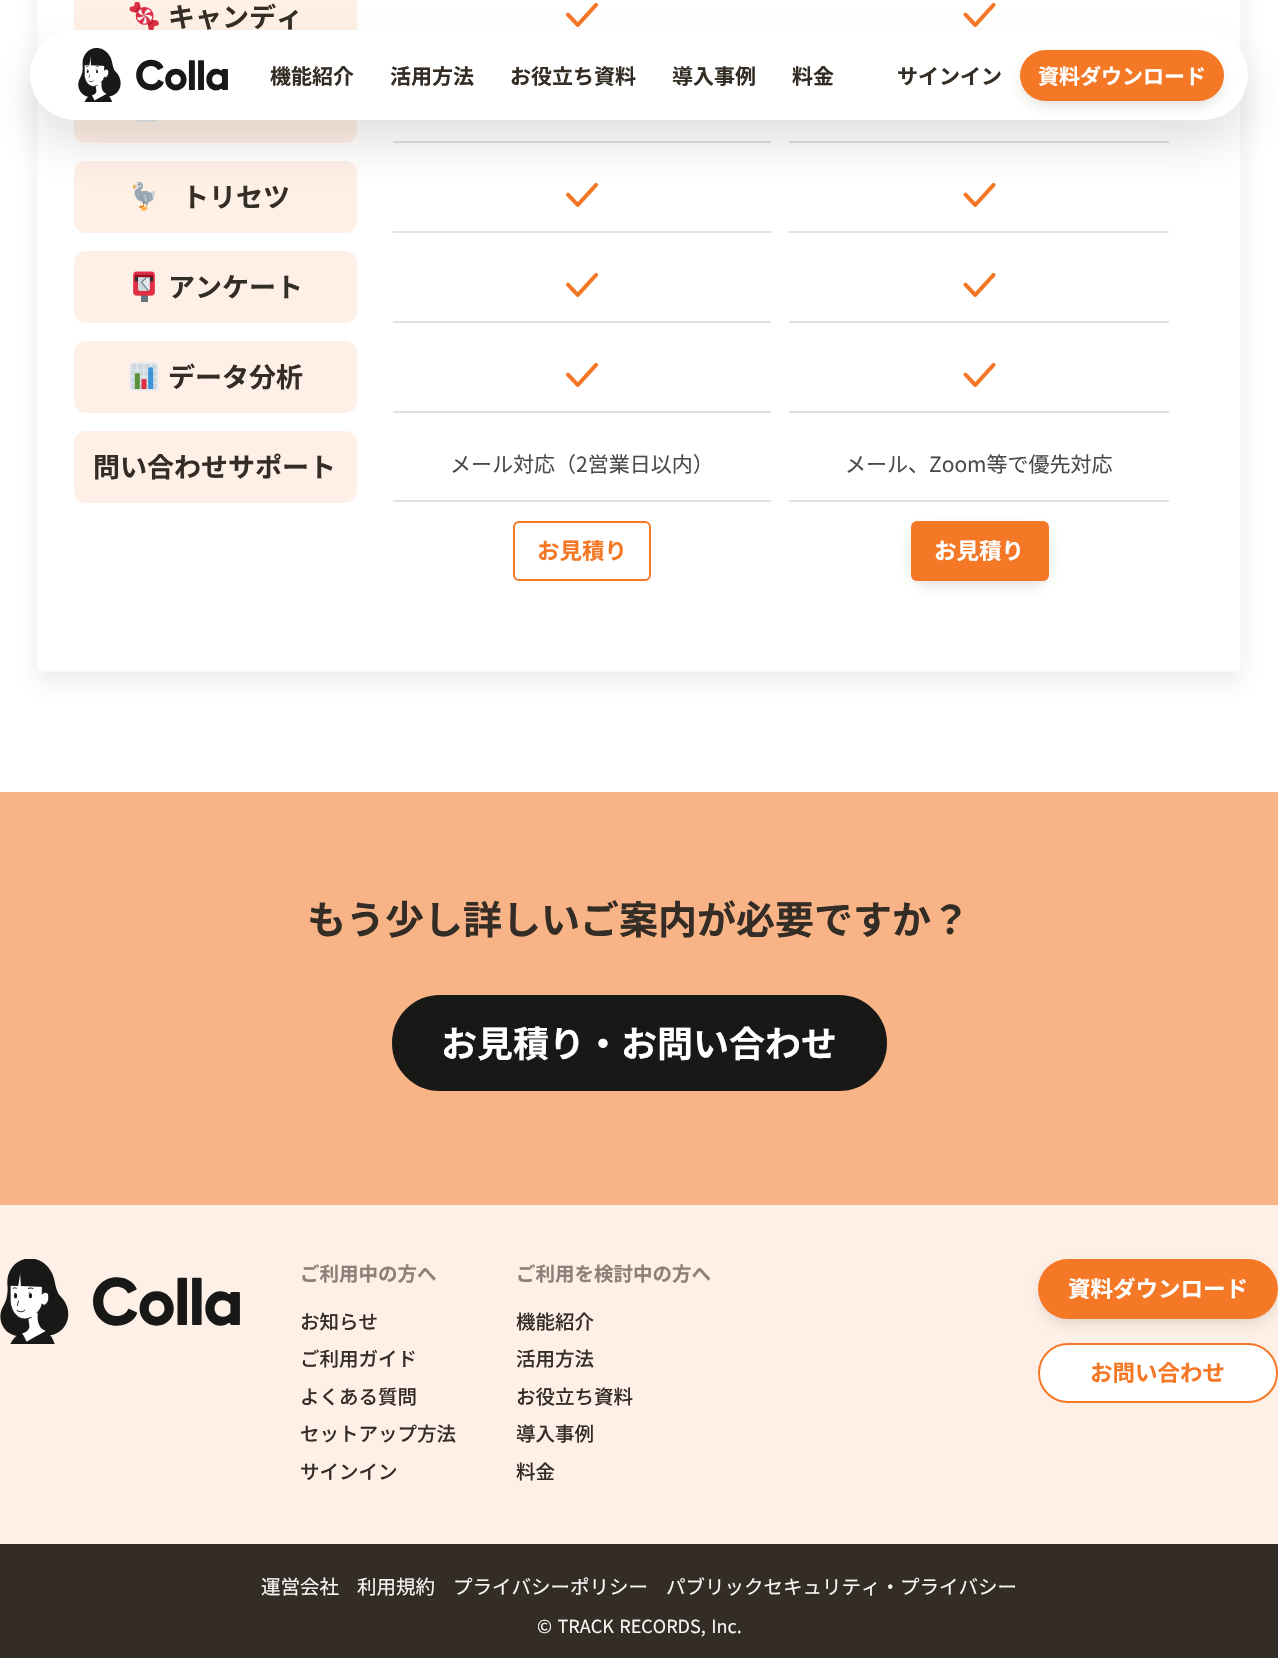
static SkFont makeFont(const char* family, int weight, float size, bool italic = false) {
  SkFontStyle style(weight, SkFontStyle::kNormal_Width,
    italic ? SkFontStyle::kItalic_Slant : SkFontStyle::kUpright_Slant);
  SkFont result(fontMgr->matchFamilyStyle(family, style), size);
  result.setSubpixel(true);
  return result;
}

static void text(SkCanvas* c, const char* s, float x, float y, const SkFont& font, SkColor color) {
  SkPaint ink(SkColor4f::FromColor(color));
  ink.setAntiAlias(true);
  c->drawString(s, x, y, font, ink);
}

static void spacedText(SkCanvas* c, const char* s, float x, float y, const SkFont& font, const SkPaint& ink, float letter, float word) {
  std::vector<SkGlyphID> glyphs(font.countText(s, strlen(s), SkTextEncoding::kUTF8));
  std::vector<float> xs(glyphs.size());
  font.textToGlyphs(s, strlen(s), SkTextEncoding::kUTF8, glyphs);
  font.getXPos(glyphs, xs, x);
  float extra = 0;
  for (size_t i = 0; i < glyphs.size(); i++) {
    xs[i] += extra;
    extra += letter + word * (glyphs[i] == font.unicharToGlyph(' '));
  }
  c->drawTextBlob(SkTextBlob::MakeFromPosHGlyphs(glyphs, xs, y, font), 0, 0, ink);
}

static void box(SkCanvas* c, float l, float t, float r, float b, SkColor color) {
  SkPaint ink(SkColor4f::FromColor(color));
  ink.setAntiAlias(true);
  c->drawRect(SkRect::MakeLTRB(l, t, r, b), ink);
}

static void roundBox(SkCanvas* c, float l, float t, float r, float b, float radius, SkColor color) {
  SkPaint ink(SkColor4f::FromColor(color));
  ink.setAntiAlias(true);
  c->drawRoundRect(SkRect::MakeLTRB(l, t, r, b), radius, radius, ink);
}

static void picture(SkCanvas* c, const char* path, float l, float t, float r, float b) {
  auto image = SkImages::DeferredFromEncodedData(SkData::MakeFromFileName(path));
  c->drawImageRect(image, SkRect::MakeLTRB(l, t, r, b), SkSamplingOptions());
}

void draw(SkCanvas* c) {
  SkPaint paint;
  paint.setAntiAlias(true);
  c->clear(0xffffffff);
  paint.setColor(0x14100800);
  paint.setMaskFilter(SkMaskFilter::MakeBlur(kNormal_SkBlurStyle, 12));
  c->drawRoundRect(SkRect::MakeLTRB(36, -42, 1242, 684), 6, 6, paint);
  paint.setMaskFilter(nullptr);
  paint.setColor(0xffffffff);
  c->drawRoundRect(SkRect::MakeLTRB(37, -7, 1241, 671), 5, 5, paint);
  paint.setStyle(SkPaint::kStroke_Style);
  paint.setStrokeWidth(2);
  paint.setColor(0xfff8f8f7);
  c->drawRoundRect(SkRect::MakeLTRB(37, -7, 1241, 671), 5, 5, paint);
  box(c, 74, 0, 357, 31, 0xfffef0e6);
  picture(c, "img_01.png", 129, 2, 159, 30);
  SkFont face1 = makeFont("Noto Sans JP", 700, 27);
  text(c, "キャンディ", 168, 27, face1, 0xff342d26);
  picture(c, "img_02.png", 566, 2, 599, 27);
  picture(c, "img_03.png", 963, 2, 996, 27);
  roundBox(c, 74, 71, 357, 143, 12, 0xfffef0e6);
  picture(c, "img_04.png", 136, 120, 158, 122);
  box(c, 393, 141, 771, 143, 0xffe0e1e4);
  box(c, 789, 141, 1169, 143, 0xffe0e1e4);
  roundBox(c, 74, 161, 357, 233, 12, 0xfffef0e6);
  picture(c, "img_05.png", 132, 181, 155, 212);
  text(c, "トリセツ", 182, 207, face1, 0xff342d26);
  box(c, 393, 231, 771, 233, 0xffe0e1e4);
  picture(c, "img_02.png", 566, 182, 599, 207);
  box(c, 789, 231, 1169, 233, 0xffe0e1e4);
  picture(c, "img_03.png", 963, 182, 996, 207);
  roundBox(c, 74, 251, 357, 323, 12, 0xfffef0e6);
  picture(c, "img_06.png", 133, 271, 155, 302);
  text(c, "アンケート", 168, 297, face1, 0xff342d26);
  box(c, 393, 321, 771, 323, 0xffe0e1e4);
  picture(c, "img_02.png", 566, 272, 599, 297);
  box(c, 789, 321, 1169, 323, 0xffe0e1e4);
  picture(c, "img_03.png", 963, 272, 996, 297);
  roundBox(c, 74, 341, 357, 413, 12, 0xfffef0e6);
  picture(c, "img_07.png", 129, 362, 159, 391);
  text(c, "データ分析", 168, 387, face1, 0xff342d26);
  box(c, 393, 411, 771, 413, 0xffe0e1e4);
  picture(c, "img_02.png", 566, 362, 599, 387);
  box(c, 789, 411, 1169, 413, 0xffe0e1e4);
  picture(c, "img_03.png", 963, 362, 996, 387);
  roundBox(c, 74, 431, 357, 503, 12, 0xfffef0e6);
  text(c, "問い合わせサポート", 93, 477, face1, 0xff342d26);
  box(c, 393, 500, 771, 502, 0xffe0e1e4);
  SkFont face2 = makeFont("Noto Sans JP", 400, 21);
  text(c, "メール対応（2営業日以内）", 450, 472, face2, 0xff4c4a49);
  box(c, 789, 500, 1169, 502, 0xffe0e1e4);
  text(c, "メール、Zoom等で優先対応", 845, 472, face2, 0xff4c4a49);
  paint.setColor(0xfff47825);
  c->drawRoundRect(SkRect::MakeLTRB(514, 522, 650, 580), 5, 5, paint);
  SkFont face3 = makeFont("Noto Sans JP", 700, 22.5f);
  text(c, "お見積り", 537, 559, face3, 0xfff47825);
  paint.setStyle(SkPaint::kFill_Style);
  paint.setColor(0x36100800);
  paint.setMaskFilter(SkMaskFilter::MakeBlur(kNormal_SkBlurStyle, 9));
  c->drawRect(SkRect::MakeLTRB(917, 533, 1043, 581), paint);
  paint.setMaskFilter(nullptr);
  roundBox(c, 911, 521, 1049, 581, 6, 0xfff47825);
  text(c, "お見積り", 934, 559, face3, 0xffffffff);
  paint.setColor(0x1f100800);
  paint.setMaskFilter(SkMaskFilter::MakeBlur(kNormal_SkBlurStyle, 24));
  c->drawRoundRect(SkRect::MakeLTRB(30, 54, 1248, 144), 45, 45, paint);
  paint.setMaskFilter(nullptr);
  roundBox(c, 30, 30, 1248, 120, 45, 0xffffffff);
  picture(c, "img_08.png", 78, 48, 228, 102);
  SkFont face4 = makeFont("Noto Sans JP", 700, 21);
  text(c, "機能紹介", 270, 84, face4, 0xff342d26);
  text(c, "活用方法", 390, 84, face4, 0xff342d26);
  text(c, "お役立ち資料", 510, 84, face4, 0xff342d26);
  text(c, "導入事例", 672, 84, face4, 0xff342d26);
  text(c, "料金", 792, 84, face4, 0xff342d26);
  text(c, "サインイン", 897, 84, face4, 0xff342d26);
  paint.setColor(0x36100800);
  paint.setMaskFilter(SkMaskFilter::MakeBlur(kNormal_SkBlurStyle, 9));
  c->drawRoundRect(SkRect::MakeLTRB(1026, 62, 1218, 101), 19.5f, 19.5f, paint);
  paint.setMaskFilter(nullptr);
  roundBox(c, 1020, 50, 1224, 101, 25.5f, 0xfff47825);
  text(c, "資料ダウンロード", 1038, 84, face4, 0xffffffff);
  box(c, 0, 792, 1278, 1205, 0xfff8b386);
  SkFont face5 = makeFont("Noto Sans JP", 700, 39);
  text(c, "もう少し詳しいご案内が必要ですか？", 307, 934, face5, 0xff342d26);
  paint.setColor(0xff181817);
  c->drawRoundRect(SkRect::MakeLTRB(393, 996, 886, 1090), 47, 47, paint);
  paint.setStyle(SkPaint::kStroke_Style);
  c->drawRoundRect(SkRect::MakeLTRB(393, 996, 886, 1090), 47, 47, paint);
  SkFont face6 = makeFont("Noto Sans JP", 700, 36);
  text(c, "お見積り・お問い合わせ", 441, 1057, face6, 0xffffffff);
  box(c, 0, 1205, 1278, 1544, 0xfffef0e7);
  picture(c, "img_09.png", 0, 1259, 240, 1344);
  SkFont face7 = makeFont("Noto Sans JP", 700, 19.5f);
  text(c, "ご利用中の方へ", 300, 1281, face7, 0xff8c8178);
  SkFont face8 = makeFont("Noto Sans JP", 500, 19.5f);
  text(c, "お知らせ", 300, 1329, face8, 0xff342d26);
  text(c, "ご利用ガイド", 300, 1366, face8, 0xff342d26);
  text(c, "よくある質問", 300, 1404, face8, 0xff342d26);
  text(c, "セットアップ方法", 300, 1441, face8, 0xff342d26);
  text(c, "サインイン", 300, 1479, face8, 0xff342d26);
  text(c, "ご利用を検討中の方へ", 516, 1281, face7, 0xff8c8178);
  text(c, "機能紹介", 516, 1329, face8, 0xff342d26);
  text(c, "活用方法", 516, 1366, face8, 0xff342d26);
  text(c, "お役立ち資料", 516, 1404, face8, 0xff342d26);
  text(c, "導入事例", 516, 1441, face8, 0xff342d26);
  text(c, "料金", 516, 1479, face8, 0xff342d26);
  paint.setStyle(SkPaint::kFill_Style);
  paint.setColor(0x36100800);
  paint.setMaskFilter(SkMaskFilter::MakeBlur(kNormal_SkBlurStyle, 9));
  c->drawRoundRect(SkRect::MakeLTRB(1044, 1271, 1272, 1319), 24, 24, paint);
  paint.setMaskFilter(nullptr);
  roundBox(c, 1038, 1259, 1278, 1319, 30, 0xfff47825);
  text(c, "資料ダウンロード", 1068, 1297, face3, 0xffffffff);
  paint.setColor(0xffffffff);
  c->drawRoundRect(SkRect::MakeLTRB(1039, 1344, 1277, 1402), 29, 29, paint);
  paint.setStyle(SkPaint::kStroke_Style);
  paint.setColor(0xfff47825);
  c->drawRoundRect(SkRect::MakeLTRB(1039, 1344, 1277, 1402), 29, 29, paint);
  text(c, "お問い合わせ", 1090, 1381, face3, 0xfff47825);
  box(c, 0, 1544, 1278, 1658, 0xff342d26);
  SkFont face9 = makeFont("Noto Sans JP", 400, 19.5f);
  text(c, "運営会社", 261, 1594, face9, 0xfff8f8f7);
  text(c, "利用規約", 357, 1594, face9, 0xfff8f8f7);
  text(c, "プライバシーポリシー", 453, 1594, face9, 0xfff8f8f7);
  text(c, "パブリックセキュリティ・プライバシー", 666, 1594, face9, 0xfff8f8f7);
  SkFont face10 = makeFont("Noto Sans JP", 400, 18);
  paint.setStyle(SkPaint::kFill_Style);
  paint.setColor(0xfff8f8f7);
  spacedText(c, "© TRACK RECORDS, Inc.", 537, 1633, face10, paint, 0, 1.5f);
}
